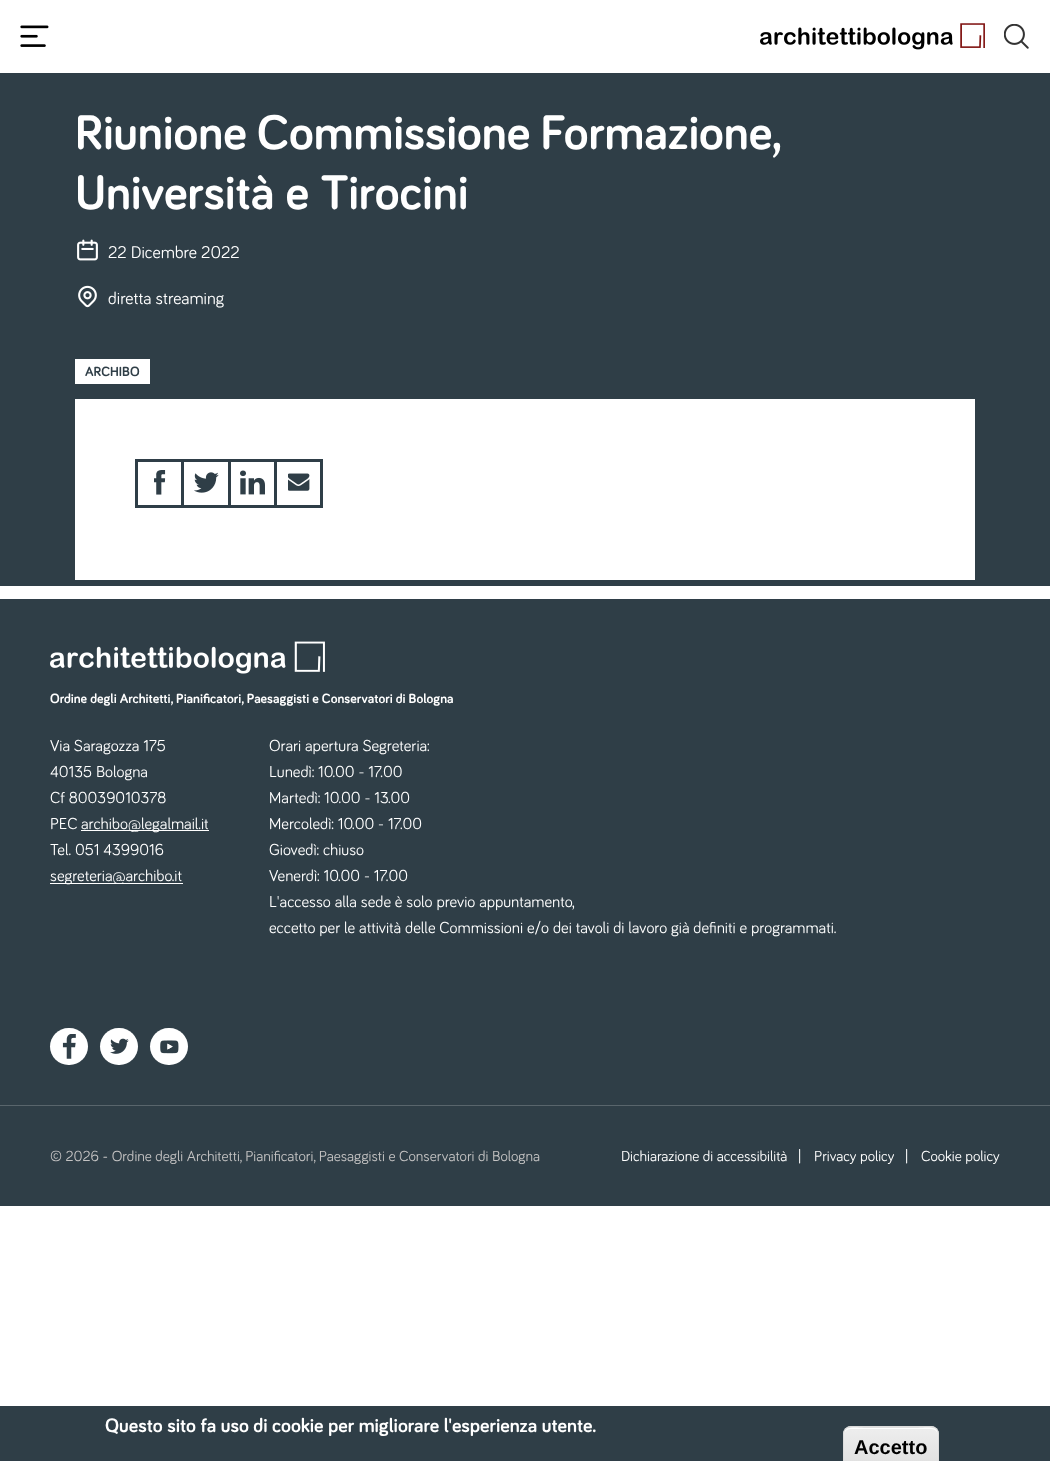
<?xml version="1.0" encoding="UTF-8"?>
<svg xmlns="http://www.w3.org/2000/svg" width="1050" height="1461">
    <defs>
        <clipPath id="clip1"><rect x="843" y="1426" width="96" height="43" rx="8"/></clipPath>
        <linearGradient id="g1" gradientUnits="userSpaceOnUse" x1="891" y1="1388" x2="891" y2="1428"><stop offset="0.05" stop-color="#EDEDED"/><stop offset="1" stop-color="#DFDFDF"/></linearGradient>
        <linearGradient id="g2" gradientUnits="userSpaceOnUse" x1="891" y1="1428" x2="891" y2="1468"><stop offset="0.05" stop-color="#EDEDED"/><stop offset="1" stop-color="#DFDFDF"/></linearGradient>
    </defs>
    <rect width="100%" height="100%" fill="#FFFFFF"/>
    <image x="20" y="25" width="29" height="22" href="img_01.png"/>
    <image x="760" y="23" width="225" height="27" href="img_02.png"/>
    <image x="1004" y="24" width="25" height="25" href="img_03.png"/>
    <rect x="0" y="73" width="1050" height="513" fill="#2F3E47"/>
    <text font-family="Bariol" font-size="50" font-weight="700" fill="#FFFFFF">
        <tspan x="75" y="149" word-spacing="-1">Riunione Commissione Formazione,</tspan>
        <tspan x="75" y="209">Università e Tirocini</tspan>
    </text>
    <image x="77" y="239" width="21" height="22" href="img_04.png"/>
    <text x="108" y="258" font-family="Bariol" font-size="17.5" fill="#FFFFFF">22 Dicembre 2022</text>
    <image x="78" y="285" width="19" height="23" href="img_05.png"/>
    <text x="108" y="304" font-family="Bariol" font-size="17.5" fill="#FFFFFF">diretta streaming</text>
    <rect x="75" y="359" width="75" height="25" fill="#FFFFFF"/>
    <text x="85" y="376" font-family="Bariol" font-size="13.75" font-weight="700" fill="#2F3E47">ARCHIBO</text>
    <rect x="75" y="399" width="900" height="181" fill="#FFFFFF"/>
    <rect x="136.5" y="460.5" width="46" height="46" fill="none" stroke="#2F3E47" stroke-width="3"/>
    <image x="154" y="470" width="12" height="25" href="img_06.png"/>
    <rect x="184" y="459" width="46" height="3" fill="#2F3E47"/>
    <rect x="228" y="459" width="3" height="49" fill="#2F3E47"/>
    <rect x="184" y="505" width="46" height="3" fill="#2F3E47"/>
    <image x="194" y="472" width="25" height="21" href="img_07.png"/>
    <rect x="230" y="459" width="46" height="3" fill="#2F3E47"/>
    <rect x="274" y="459" width="3" height="49" fill="#2F3E47"/>
    <rect x="230" y="505" width="46" height="3" fill="#2F3E47"/>
    <image x="240" y="470" width="25" height="25" href="img_08.png"/>
    <rect x="276" y="459" width="47" height="3" fill="#2F3E47"/>
    <rect x="320" y="459" width="3" height="49" fill="#2F3E47"/>
    <rect x="276" y="505" width="47" height="3" fill="#2F3E47"/>
    <image x="288" y="473" width="22" height="18" href="img_09.png"/>
    <rect x="0" y="599" width="1050" height="607" fill="#2F3E47"/>
    <image x="50" y="641" width="275" height="33" href="img_10.png"/>
    <text x="50" y="703" font-family="Bariol" font-size="13.75" font-weight="700" fill="#FFFFFF">Ordine degli Architetti, Pianificatori, Paesaggisti e Conservatori di Bologna</text>
    <text font-family="Bariol" font-size="16.25" fill="#FFFFFF">
        <tspan x="50" y="751">Via Saragozza 175</tspan>
        <tspan x="50" y="777">40135 Bologna</tspan>
        <tspan x="50" y="803">Cf 80039010378</tspan>
        <tspan x="50" y="829">PEC</tspan>
    </text>
    <rect x="81" y="830" width="128" height="1" fill="#FFFFFF"/>
    <text x="81" y="829" font-family="Bariol" font-size="16.25" fill="#FFFFFF">archibo@legalmail.it</text>
    <text x="50" y="855" font-family="Bariol" font-size="16.25" fill="#FFFFFF">Tel. 051 4399016</text>
    <rect x="50" y="883" width="133" height="1" fill="#FFFFFF"/>
    <text x="50" y="881" font-family="Bariol" font-size="16.25" fill="#FFFFFF">segreteria@archibo.it</text>
    <text font-family="Bariol" font-size="16.25" fill="#FFFFFF">
        <tspan x="269" y="751">Orari apertura Segreteria:</tspan>
        <tspan x="269" y="777">Lunedì: 10.00 - 17.00</tspan>
        <tspan x="269" y="803">Martedì: 10.00 - 13.00</tspan>
        <tspan x="269" y="829">Mercoledì: 10.00 - 17.00</tspan>
        <tspan x="269" y="855">Giovedì: chiuso</tspan>
        <tspan x="269" y="881">Venerdì: 10.00 - 17.00</tspan>
        <tspan x="269" y="907">L'accesso alla sede è solo previo appuntamento,</tspan>
        <tspan x="269" y="933">eccetto per le attività delle Commissioni e/o dei tavoli di lavoro già definiti e programmati.</tspan>
    </text>
    <rect x="50" y="1028" width="38" height="37" rx="18.5" fill="#FFFFFF"/>
    <image x="62" y="1034" width="14" height="25" href="img_11.png"/>
    <rect x="100" y="1028" width="38" height="37" rx="18.5" fill="#FFFFFF"/>
    <image x="110" y="1038" width="19" height="16" href="img_12.png"/>
    <rect x="150" y="1028" width="38" height="37" rx="18.5" fill="#FFFFFF"/>
    <image x="160" y="1040" width="19" height="14" href="img_13.png"/>
    <rect x="0" y="1105" width="1050" height="1" fill="#59656C"/>
    <text x="50" y="1161" font-family="Bariol" font-size="15" fill="#C4C3C3">© 2026 - Ordine degli Architetti, Pianificatori, Paesaggisti e Conservatori di Bologna</text>
    <text x="621" y="1161" font-family="Bariol" font-size="15" fill="#FFFFFF">Dichiarazione di accessibilità</text>
    <text x="798" y="1161" font-family="Bariol" font-size="15" fill="#FFFFFF">|</text>
    <text x="814" y="1161" font-family="Bariol" font-size="15" fill="#FFFFFF">Privacy policy</text>
    <text x="905" y="1161" font-family="Bariol" font-size="15" fill="#FFFFFF">|</text>
    <text x="921" y="1161" font-family="Bariol" font-size="15" fill="#FFFFFF">Cookie policy</text>
    <rect x="0" y="1406" width="1050" height="55" fill="#2F3E47"/>
    <text x="105" y="1432" font-family="Bariol" font-size="20" font-weight="700" fill="#FFFFFF">Questo sito fa uso di cookie per migliorare l'esperienza utente.</text>
    <g clip-path="url(#clip1)">
        <rect x="843" y="1426" width="96" height="2" fill="url(#g1)"/>
        <rect x="843" y="1428" width="96" height="33" fill="url(#g2)"/>
    </g>
    <path d="M 850 1429 H 931 C 935 1429 938 1432 938 1435 C 938 1425 925 1428 918 1428 H 864 C 857 1428 844 1425 844 1435 C 844 1432 847 1429 850 1429 Z" fill="#FFFFFF"/>
    <rect x="843.5" y="1426.5" width="95" height="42" rx="7.5" fill="none" stroke="#DCDCDC"/>
    <text x="854" y="1454" font-family="Liberation Sans" font-size="20" font-weight="700" fill="#000000">Accetto</text>
</svg>
